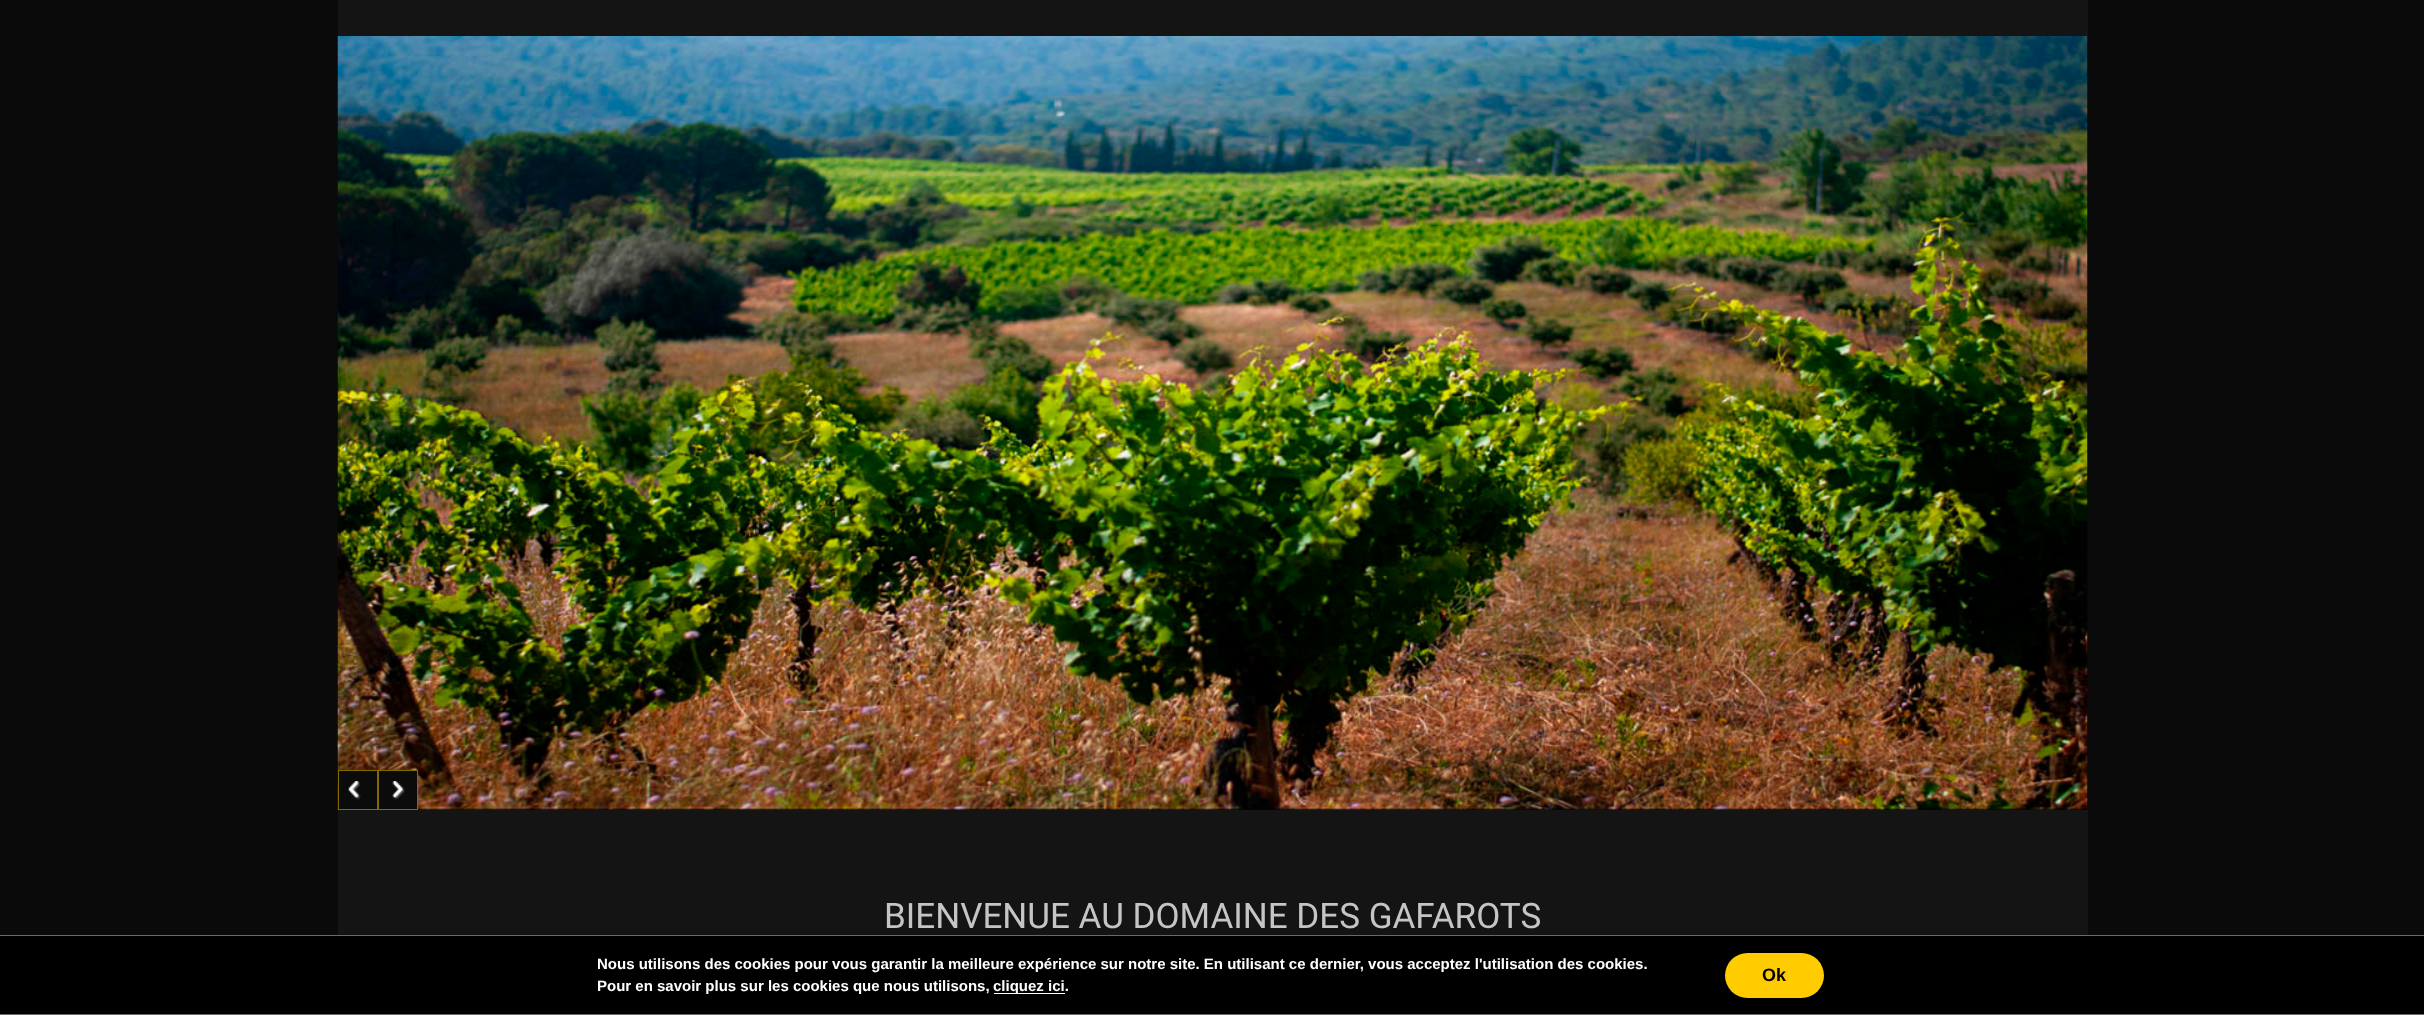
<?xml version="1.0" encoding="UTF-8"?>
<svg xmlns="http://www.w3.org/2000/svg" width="2424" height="1015">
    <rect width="100%" height="100%" fill="#0A0A0A"/>
    <rect x="338" y="0" width="1750" height="36" fill="#141414"/>
    <image x="337" y="36" width="1751" height="774" href="img_01.png"/>
    <rect x="339" y="771" width="38" height="38" fill="#0B0B0B"/>
    <image x="348" y="781" width="13" height="19" href="img_02.png"/>
    <rect x="338.5" y="770.5" width="39" height="39" fill="none" stroke="#846900"/>
    <rect x="379" y="771" width="38" height="38" fill="#0B0B0B"/>
    <image x="392" y="781" width="13" height="19" href="img_03.png"/>
    <rect x="378.5" y="770.5" width="39" height="39" fill="none" stroke="#846900"/>
    <rect x="338" y="810" width="1750" height="125" fill="#141414"/>
    <text x="884" y="928" font-family="Roboto" font-size="35" fill="#C5C5C5">BIENVENUE AU DOMAINE DES GAFAROTS</text>
    <rect x="0" y="936" width="2424" height="78" fill="#000000"/>
    <rect x="0" y="935" width="2424" height="1" fill="#696969"/>
    <rect x="0" y="1014" width="2424" height="1" fill="#696969"/>
    <text font-family="Liberation Sans" font-size="15" font-weight="700" fill="#FFFFFF">
        <tspan x="597" y="969">Nous utilisons des cookies pour vous garantir la meilleure expérience sur notre site. En utilisant ce dernier, vous acceptez l'utilisation des cookies.</tspan>
        <tspan x="597" y="991">Pour en savoir plus sur les cookies que nous utilisons,</tspan>
    </text>
    <rect x="994" y="993" width="71" height="1" fill="#FFFFFF"/>
    <text x="993" y="991" font-family="Liberation Sans" font-size="15" font-weight="700" fill="#FFFFFF">cliquez ici.</text>
    <rect x="1725" y="953" width="99" height="45" rx="22.5" fill="#FFCC00"/>
    <text x="1762" y="981" font-family="Liberation Sans" font-size="18" font-weight="700" fill="#000000">Ok</text>
</svg>
